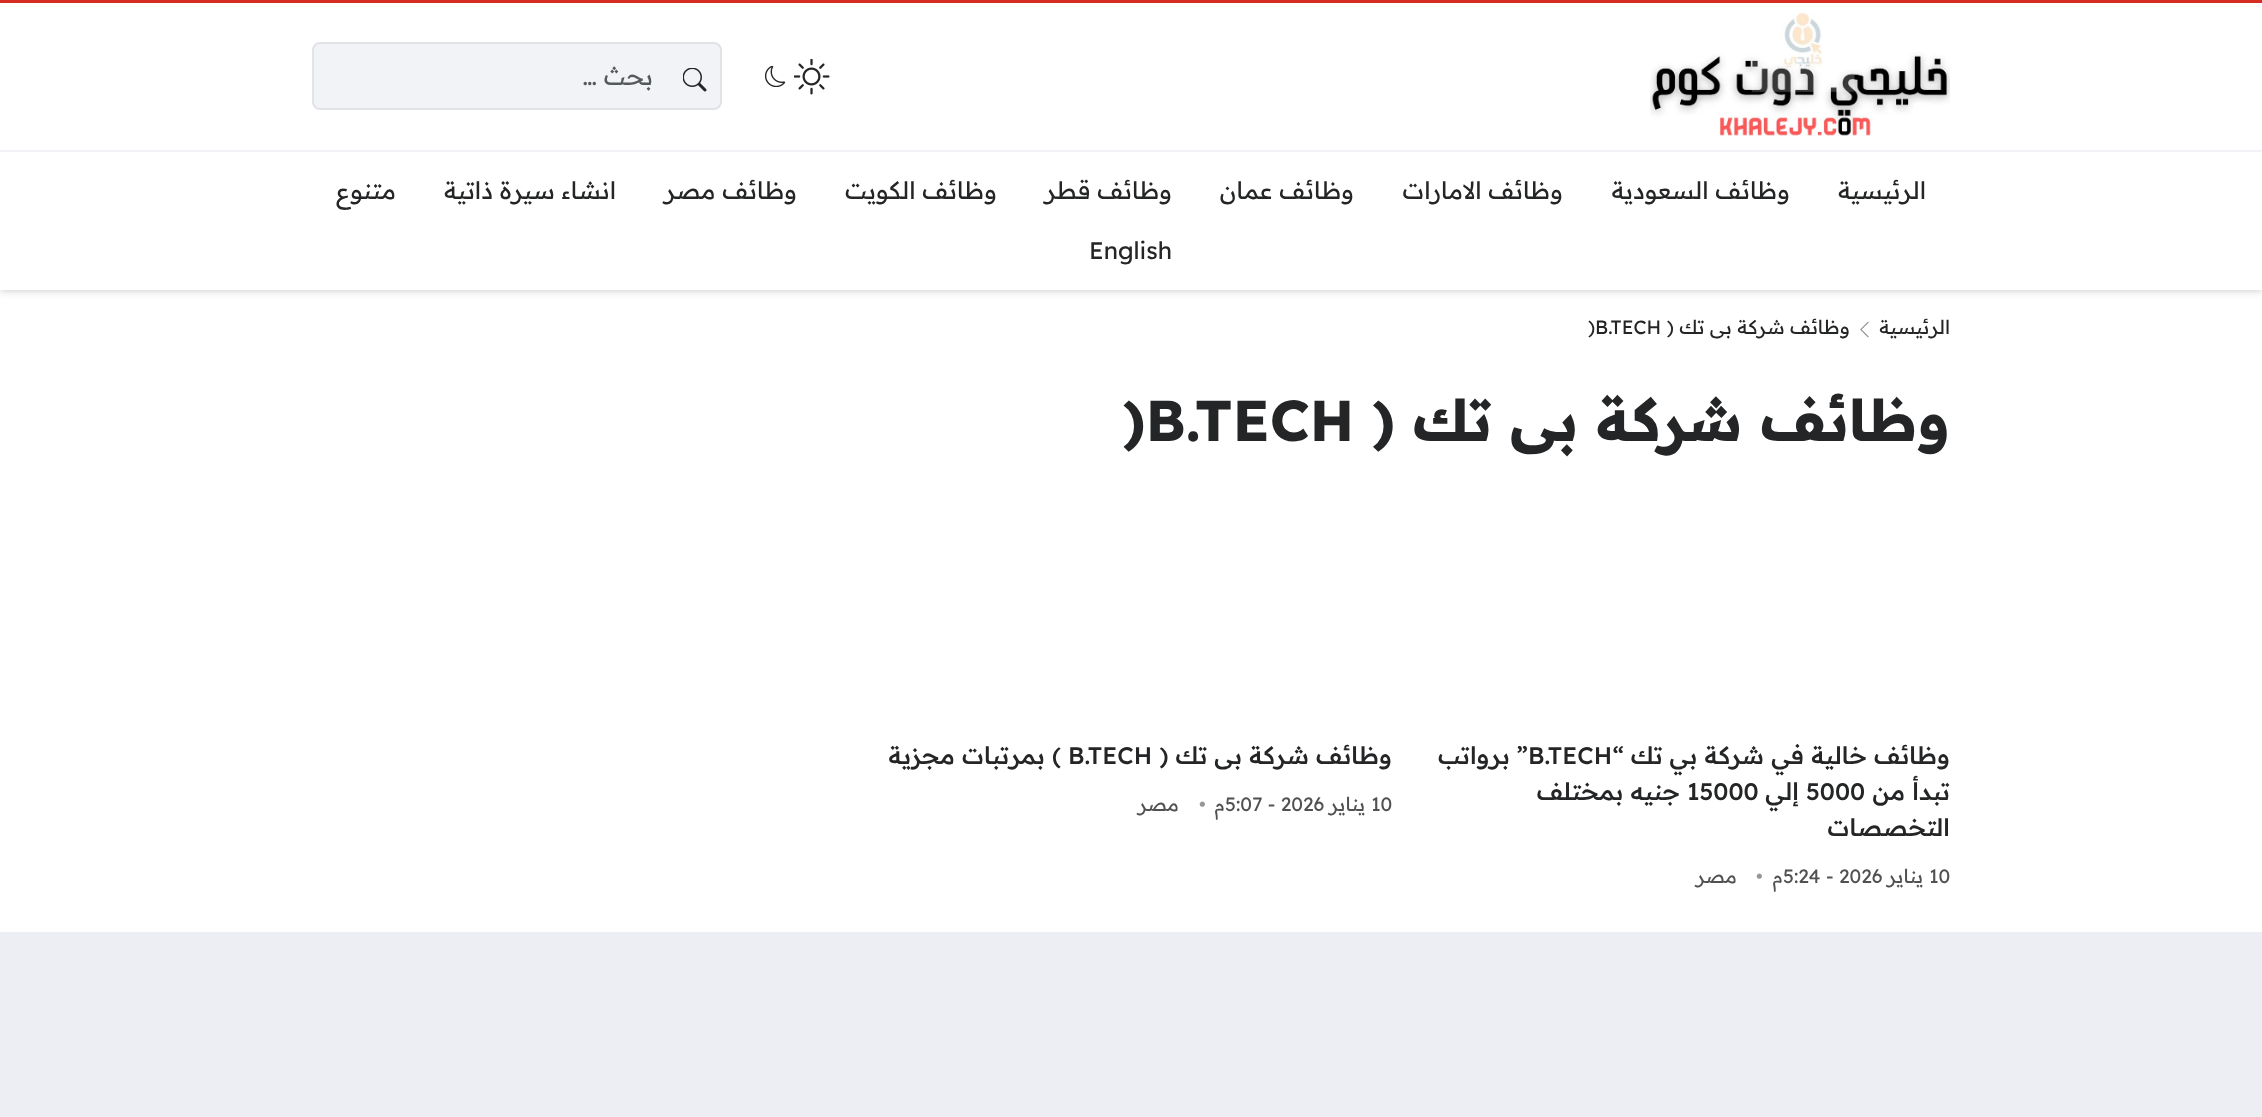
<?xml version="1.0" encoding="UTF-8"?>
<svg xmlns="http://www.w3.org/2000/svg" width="2262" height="1117">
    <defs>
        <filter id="blur1" x="-50%" y="-200%" width="200%" height="500%"><feGaussianBlur stdDeviation="4"/></filter>
    </defs>
    <rect width="100%" height="100%" fill="#EDEEF3"/>
    <rect x="0" y="290" width="2262" height="642" fill="#FFFFFF"/>
    <rect x="0" y="0" width="2262" height="290" fill="#C3C3C3" filter="url(#blur1)"/>
    <rect x="0" y="0" width="2262" height="3" fill="#D52D21"/>
    <rect x="0" y="3" width="2262" height="147" fill="#FFFFFF"/>
    <image x="1650" y="12" width="300" height="124" href="img_01.png"/>
    <image x="794" y="59" width="36" height="36" href="img_02.png"/>
    <image x="765" y="66" width="21" height="21" href="img_03.png"/>
    <rect x="313" y="43" width="408" height="66" rx="7" fill="#F2F3F6" stroke="#E2E3E7" stroke-width="2"/>
    <image x="683" y="68" width="24" height="24" href="img_04.png"/>
    <text x="653" y="85" font-family="Readex Pro" font-size="24" direction="rtl" fill="#55595C">بحث …</text>
    <rect x="0" y="152" width="2262" height="138" fill="#FFFFFF"/>
    <rect x="0" y="150" width="2262" height="2" fill="#F2F3F6"/>
    <text x="1926" y="199" font-family="Readex Pro" font-size="24" direction="rtl" fill="#242526">الرئيسية</text>
    <text x="1790" y="199" font-family="Readex Pro" font-size="24" direction="rtl" fill="#242526">وظائف السعودية</text>
    <text x="1563" y="199" font-family="Readex Pro" font-size="24" direction="rtl" fill="#242526">وظائف الامارات</text>
    <text x="1354" y="199" font-family="Readex Pro" font-size="24" direction="rtl" fill="#242526">وظائف عمان</text>
    <text x="1172" y="199" font-family="Readex Pro" font-size="24" direction="rtl" fill="#242526">وظائف قطر</text>
    <text x="997" y="199" font-family="Readex Pro" font-size="24" direction="rtl" fill="#242526">وظائف الكويت</text>
    <text x="797" y="199" font-family="Readex Pro" font-size="24" direction="rtl" fill="#242526">وظائف مصر</text>
    <text x="616" y="199" font-family="Readex Pro" font-size="24" direction="rtl" fill="#242526">انشاء سيرة ذاتية</text>
    <text x="396" y="199" font-family="Readex Pro" font-size="24" direction="rtl" fill="#242526">متنوع</text>
    <text x="1089" y="259" font-family="Readex Pro" font-size="24" fill="#242526">English</text>
    <text x="1950" y="334" font-family="Readex Pro" font-size="19.25" direction="rtl" fill="#242526">الرئيسية</text>
    <image x="1860" y="321" width="9" height="17" href="img_05.png"/>
    <text x="1850" y="334" font-family="Readex Pro" font-size="19.25" direction="rtl" fill="#242526">وظائف شركة بى تك (</text>
    <text x="1588" y="334" font-family="Readex Pro" font-size="19.25" fill="#242526">)B.TECH</text>
    <text x="1950" y="441" font-family="Readex Pro" font-size="57.6" font-weight="700" direction="rtl" fill="#242526">وظائف شركة بى تك (</text>
    <text x="1123" y="441" font-family="Readex Pro" font-size="57.6" font-weight="700" fill="#242526">)B.TECH</text>
    <text x="1950" y="764" font-family="Readex Pro" font-size="24" font-weight="500" direction="rtl" fill="#242526">وظائف خالية في شركة بي تك “</text>
    <text x="1528" y="764" font-family="Readex Pro" font-size="24" font-weight="500" fill="#242526">B.TECH</text>
    <text x="1528" y="764" font-family="Readex Pro" font-size="24" font-weight="500" direction="rtl" fill="#242526">” برواتب</text>
    <text x="1950" y="800" font-family="Readex Pro" font-size="24" font-weight="500" direction="rtl" fill="#242526">تبدأ من</text>
    <text x="1806" y="800" font-family="Readex Pro" font-size="24" font-weight="500" fill="#242526">5000</text>
    <text x="1799" y="800" font-family="Readex Pro" font-size="24" font-weight="500" direction="rtl" fill="#242526">إلي</text>
    <text x="1687" y="800" font-family="Readex Pro" font-size="24" font-weight="500" fill="#242526">15000</text>
    <text x="1680" y="800" font-family="Readex Pro" font-size="24" font-weight="500" direction="rtl" fill="#242526">جنيه بمختلف</text>
    <text x="1950" y="836" font-family="Readex Pro" font-size="24" font-weight="500" direction="rtl" fill="#242526">التخصصات</text>
    <text x="1929" y="883" font-family="Readex Pro" font-size="19.25" fill="#505151">10</text>
    <text x="1923" y="883" font-family="Readex Pro" font-size="19.25" direction="rtl" fill="#505151">يناير</text>
    <text x="1826" y="883" font-family="Readex Pro" font-size="19.25" fill="#505151">- 2026</text>
    <text x="1783" y="883" font-family="Readex Pro" font-size="19.25" fill="#505151">5:24</text>
    <text x="1783" y="883" font-family="Readex Pro" font-size="19.25" direction="rtl" fill="#505151">م</text>
    <text x="1756" y="883" font-family="Readex Pro" font-size="19.25" fill="#969697">•</text>
    <text x="1737" y="883" font-family="Readex Pro" font-size="19.25" direction="rtl" fill="#505151">مصر</text>
    <text x="1392" y="764" font-family="Readex Pro" font-size="24" font-weight="500" direction="rtl" fill="#242526">وظائف شركة بى تك (</text>
    <text x="1068" y="764" font-family="Readex Pro" font-size="24" font-weight="500" fill="#242526">B.TECH</text>
    <text x="1061" y="764" font-family="Readex Pro" font-size="24" font-weight="500" direction="rtl" fill="#242526">) بمرتبات مجزية</text>
    <text x="1371" y="811" font-family="Readex Pro" font-size="19.25" fill="#505151">10</text>
    <text x="1365" y="811" font-family="Readex Pro" font-size="19.25" direction="rtl" fill="#505151">يناير</text>
    <text x="1225" y="811" font-family="Readex Pro" font-size="19.25" fill="#505151">5:07 - 2026</text>
    <text x="1225" y="811" font-family="Readex Pro" font-size="19.25" direction="rtl" fill="#505151">م</text>
    <text x="1199" y="811" font-family="Readex Pro" font-size="19.25" fill="#969697">•</text>
    <text x="1179" y="811" font-family="Readex Pro" font-size="19.25" direction="rtl" fill="#505151">مصر</text>
</svg>
